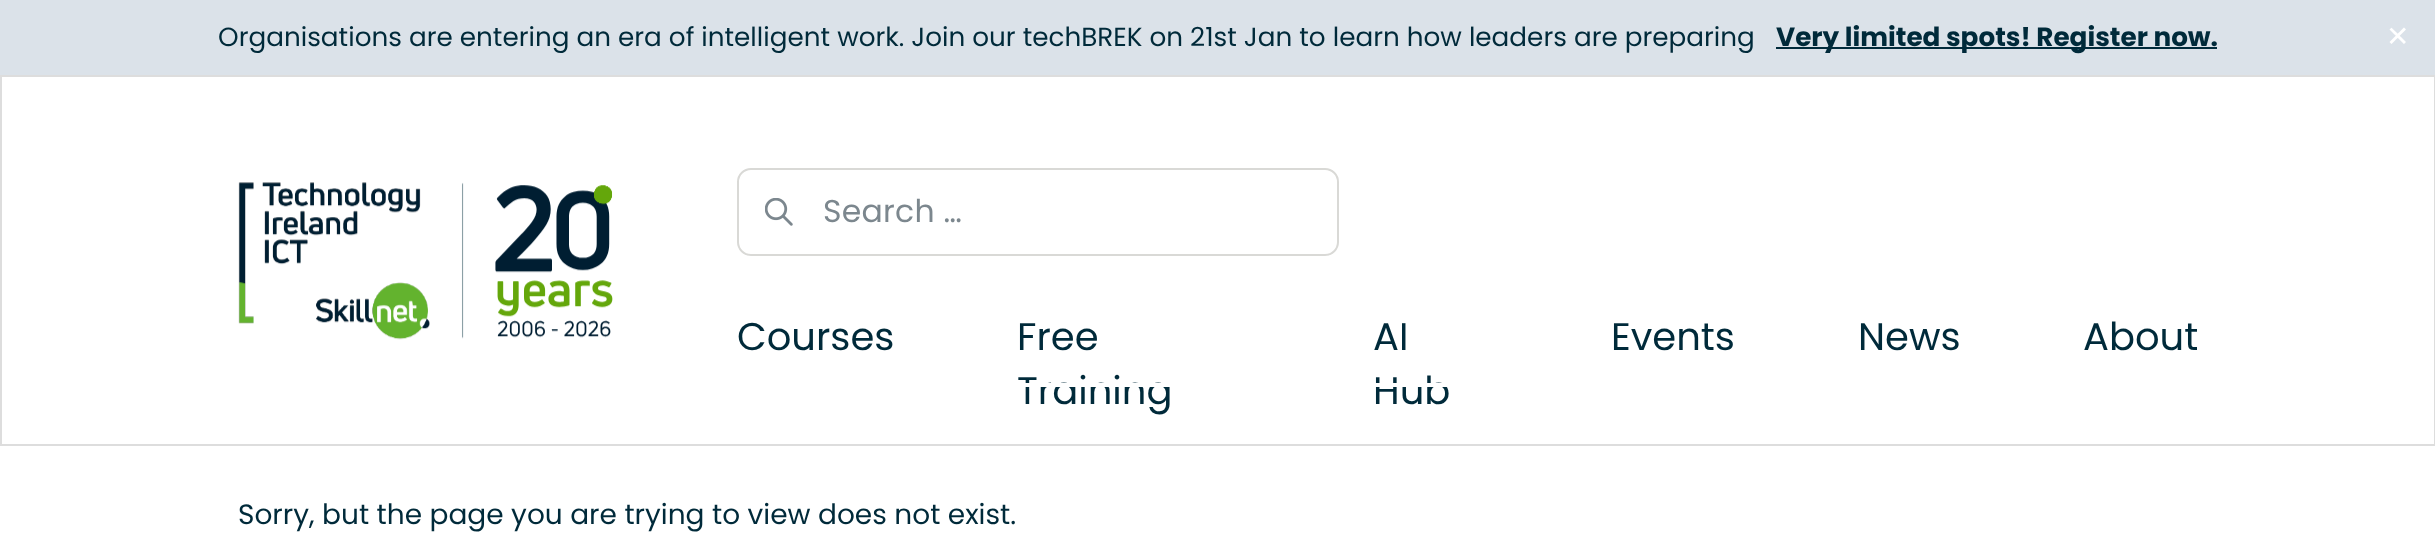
<?xml version="1.0" encoding="UTF-8"?>
<svg xmlns="http://www.w3.org/2000/svg" width="2435" height="550">
    <rect width="100%" height="100%" fill="#FFFFFF"/>
    <rect x="0" y="0" width="2435" height="75" fill="#DBE2E9"/>
    <text x="218" y="46" font-family="Poppins" font-size="26.25" fill="#002A3A">Organisations are entering an era of intelligent work. Join our techBREK on 21st Jan to learn how leaders are preparing</text>
    <rect x="1776" y="47" width="441" height="2" fill="#002A3A"/>
    <text x="1776" y="46" font-family="Poppins" font-size="26.25" font-weight="700" fill="#002A3A">Very limited spots! Register now.</text>
    <text x="2386" y="46" font-family="DejaVu Sans" font-size="28" fill="#FFFFFF">✕</text>
    <rect x="1" y="76" width="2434" height="369" fill="none" stroke="#DDDDDD" stroke-width="2"/>
    <image x="238" y="182" width="375" height="158" href="img_01.png"/>
    <rect x="738" y="169" width="600" height="86" rx="13" fill="none" stroke="#D9D9D6" stroke-width="2"/>
    <image x="765" y="198" width="28" height="28" href="img_02.png"/>
    <text x="823" y="222" font-family="Poppins" font-size="31.5" letter-spacing="0.25" fill="#7C878E">Search …</text>
    <text x="737" y="350" font-family="Poppins" font-size="38.5" fill="#002A3A">Courses</text>
    <text x="1017" y="404" font-family="Poppins" font-size="38.5" fill="#002A3A">Training</text>
    <text x="1373" y="404" font-family="Poppins" font-size="38.5" fill="#002A3A">Hub</text>
    <rect x="387" y="383" width="1295" height="4" rx="2" fill="#FFFFFF"/>
    <text x="1017" y="350" font-family="Poppins" font-size="38.5" fill="#002A3A">Free</text>
    <text x="1373" y="350" font-family="Poppins" font-size="38.5" fill="#002A3A">AI</text>
    <text x="1611" y="350" font-family="Poppins" font-size="38.5" fill="#002A3A">Events</text>
    <text x="1858" y="350" font-family="Poppins" font-size="38.5" fill="#002A3A">News</text>
    <text x="2083" y="350" font-family="Poppins" font-size="38.5" fill="#002A3A">About</text>
    <text x="238" y="524" font-family="Poppins" font-size="28" fill="#002A3A">Sorry, but the page you are trying to view does not exist.</text>
</svg>
